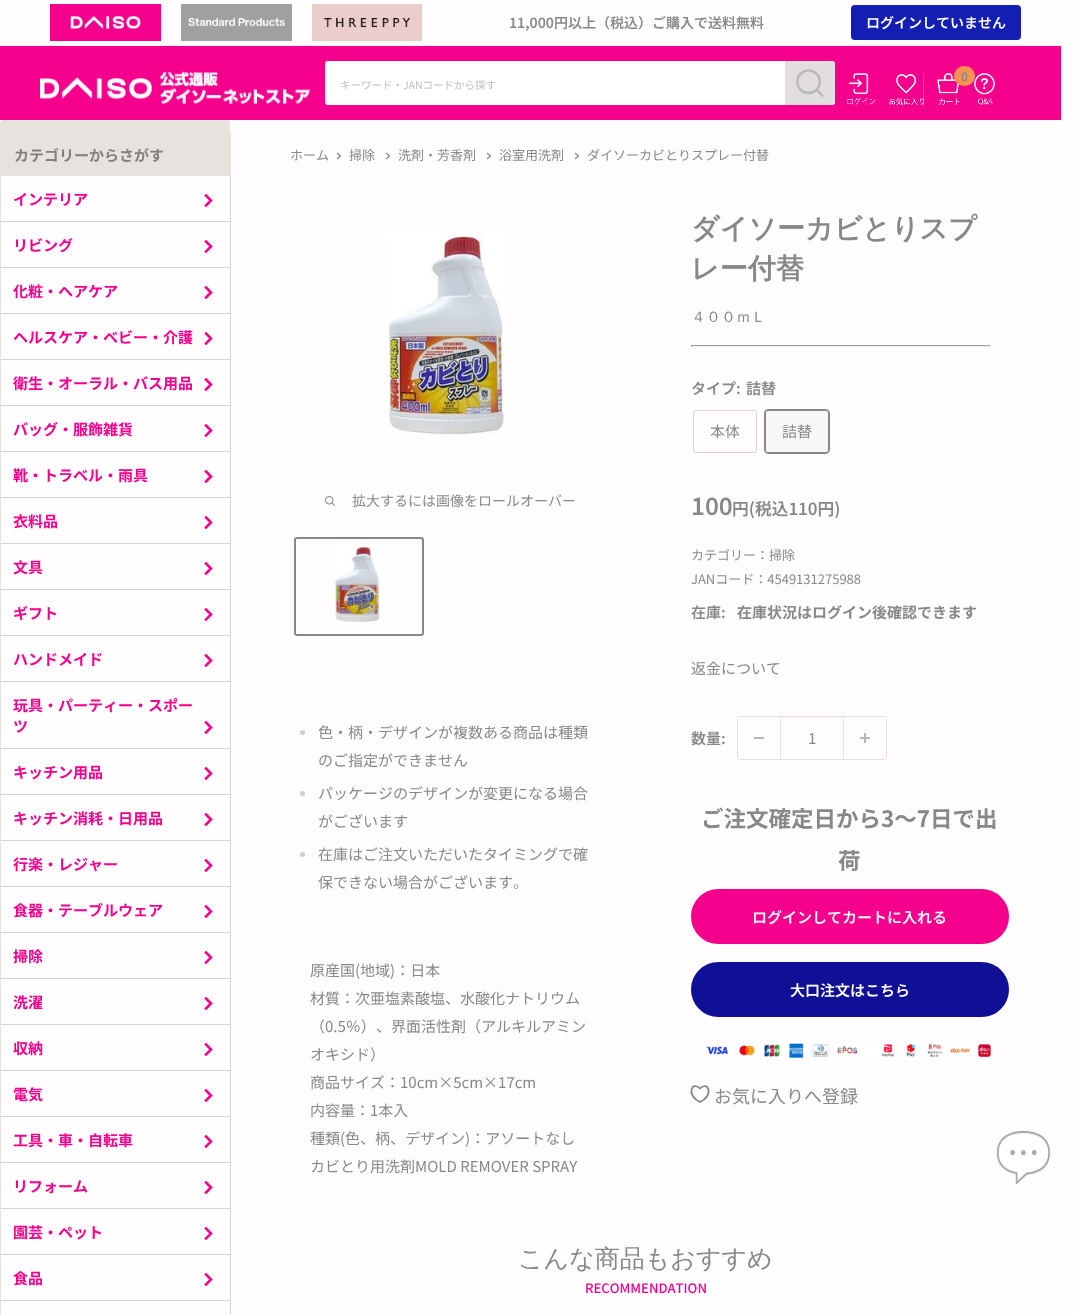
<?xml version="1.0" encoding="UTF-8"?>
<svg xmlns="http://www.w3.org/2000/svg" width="1076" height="1315">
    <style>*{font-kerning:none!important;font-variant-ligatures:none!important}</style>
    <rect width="100%" height="100%" fill="#FFFDFD"/>
    <rect x="0" y="45" width="1061" height="1" fill="#F8F6F5"/>
    <image x="50" y="4" width="111" height="37" href="img_01.png"/>
    <image x="181" y="4" width="111" height="37" href="img_02.png"/>
    <image x="312" y="4" width="110" height="37" href="img_03.png"/>
    <text x="509" y="28" font-family="Noto Sans JP" font-size="14" font-weight="600" fill="#888888">11,000円以上（税込）ご購入で送料無料</text>
    <rect x="851" y="5" width="170" height="35" rx="4" fill="#131EB2"/>
    <text x="866" y="28" font-family="Noto Sans JP" font-size="14" font-weight="600" fill="#FFFFFF">ログインしていません</text>
    <rect x="0" y="46" width="1061" height="74" fill="#F5008C"/>
    <image x="40" y="71" width="270" height="34" href="img_04.png"/>
    <image x="847" y="73" width="29" height="32" href="img_05.png"/>
    <image x="889" y="74" width="35" height="31" href="img_06.png"/>
    <rect x="923" y="73" width="1" height="34" fill="#E9E2DD" fill-opacity="0.3"/>
    <image x="937" y="73" width="23" height="32" href="img_07.png"/>
    <image x="974" y="73" width="21" height="32" href="img_08.png"/>
    <rect x="954" y="66" width="21" height="20" rx="10" fill="#F5944F"/>
    <text x="961" y="81" font-family="Noto Sans JP" font-size="12" font-weight="600" fill="#888888">0</text>
    <rect x="325" y="61" width="510" height="44" rx="3" fill="#FFFFFF"/>
    <text x="340" y="89" font-family="Noto Sans JP" font-size="10.5" fill="#BEBEBE">キーワード・JANコードから探す</text>
    <path d="M 785 61 H 832 C 833.5 61 835 62.5 835 64 V 102 C 835 103.5 833.5 105 832 105 H 785 Z" fill="#E1DEDD"/>
    <image x="796" y="69" width="28" height="28" href="img_09.png"/>
    <rect x="0.5" y="120.5" width="229" height="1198" rx="2.5" fill="none" stroke="#E7E2DE"/>
    <rect x="1" y="121" width="228" height="12" fill="#E7E2DE"/>
    <rect x="1" y="133" width="230" height="43" fill="#E7E2DE"/>
    <text x="14" y="161" font-family="Noto Sans JP" font-size="15" font-weight="700" fill="#808080">カテゴリーからさがす</text>
    <rect x="230" y="176" width="1" height="1139" fill="#D3D3D3"/>
    <rect x="1" y="221" width="230" height="1" fill="#D3D3D3"/>
    <rect x="229" y="176" width="1" height="45" fill="#FFFFFF"/>
    <text x="13" y="205" font-family="Noto Sans JP" font-size="15" font-weight="700" fill="#F5008C">インテリア</text>
    <path d="M 206 195.5 L 211 200.5 L 206 205.5 M 206 241.5 L 211 246.5 L 206 251.5" fill="none" stroke="#F5008C" stroke-width="2.5" stroke-linecap="square"/>
    <rect x="1" y="267" width="230" height="1" fill="#D3D3D3"/>
    <rect x="229" y="222" width="1" height="45" fill="#FFFFFF"/>
    <text x="13" y="251" font-family="Noto Sans JP" font-size="15" font-weight="700" fill="#F5008C">リビング</text>
    <rect x="1" y="313" width="230" height="1" fill="#D3D3D3"/>
    <rect x="229" y="268" width="1" height="45" fill="#FFFFFF"/>
    <text x="13" y="297" font-family="Noto Sans JP" font-size="15" font-weight="700" fill="#F5008C">化粧・ヘアケア</text>
    <path d="M 206 287.5 L 211 292.5 L 206 297.5 M 206 333.5 L 211 338.5 L 206 343.5" fill="none" stroke="#F5008C" stroke-width="2.5" stroke-linecap="square"/>
    <rect x="1" y="359" width="230" height="1" fill="#D3D3D3"/>
    <rect x="229" y="314" width="1" height="45" fill="#FFFFFF"/>
    <text x="13" y="343" font-family="Noto Sans JP" font-size="15" font-weight="700" fill="#F5008C">ヘルスケア・ベビー・介護</text>
    <rect x="1" y="405" width="230" height="1" fill="#D3D3D3"/>
    <rect x="229" y="360" width="1" height="45" fill="#FFFFFF"/>
    <text x="13" y="389" font-family="Noto Sans JP" font-size="15" font-weight="700" fill="#F5008C">衛生・オーラル・バス用品</text>
    <path d="M 206 379.5 L 211 384.5 L 206 389.5 M 206 425.5 L 211 430.5 L 206 435.5" fill="none" stroke="#F5008C" stroke-width="2.5" stroke-linecap="square"/>
    <rect x="1" y="451" width="230" height="1" fill="#D3D3D3"/>
    <rect x="229" y="406" width="1" height="45" fill="#FFFFFF"/>
    <text x="13" y="435" font-family="Noto Sans JP" font-size="15" font-weight="700" fill="#F5008C">バッグ・服飾雑貨</text>
    <rect x="1" y="497" width="230" height="1" fill="#D3D3D3"/>
    <rect x="229" y="452" width="1" height="45" fill="#FFFFFF"/>
    <text x="13" y="481" font-family="Noto Sans JP" font-size="15" font-weight="700" fill="#F5008C">靴・トラベル・雨具</text>
    <path d="M 206 471.5 L 211 476.5 L 206 481.5 M 206 517.5 L 211 522.5 L 206 527.5" fill="none" stroke="#F5008C" stroke-width="2.5" stroke-linecap="square"/>
    <rect x="1" y="543" width="230" height="1" fill="#D3D3D3"/>
    <rect x="229" y="498" width="1" height="45" fill="#FFFFFF"/>
    <text x="13" y="527" font-family="Noto Sans JP" font-size="15" font-weight="700" fill="#F5008C">衣料品</text>
    <rect x="1" y="589" width="230" height="1" fill="#D3D3D3"/>
    <rect x="229" y="544" width="1" height="45" fill="#FFFFFF"/>
    <text x="13" y="573" font-family="Noto Sans JP" font-size="15" font-weight="700" fill="#F5008C">文具</text>
    <path d="M 206 563.5 L 211 568.5 L 206 573.5 M 206 609.5 L 211 614.5 L 206 619.5" fill="none" stroke="#F5008C" stroke-width="2.5" stroke-linecap="square"/>
    <rect x="1" y="635" width="230" height="1" fill="#D3D3D3"/>
    <rect x="229" y="590" width="1" height="45" fill="#FFFFFF"/>
    <text x="13" y="619" font-family="Noto Sans JP" font-size="15" font-weight="700" fill="#F5008C">ギフト</text>
    <rect x="1" y="681" width="230" height="1" fill="#D3D3D3"/>
    <rect x="229" y="636" width="1" height="45" fill="#FFFFFF"/>
    <text x="13" y="665" font-family="Noto Sans JP" font-size="15" font-weight="700" fill="#F5008C">ハンドメイド</text>
    <path d="M 206 655.5 L 211 660.5 L 206 665.5" fill="none" stroke="#F5008C" stroke-width="2.5" stroke-linecap="square"/>
    <rect x="1" y="748" width="230" height="1" fill="#D3D3D3"/>
    <rect x="229" y="682" width="1" height="66" fill="#FFFFFF"/>
    <text font-family="Noto Sans JP" font-size="15" font-weight="700" fill="#F5008C">
        <tspan x="13" y="711">玩具・パーティー・スポー</tspan>
        <tspan x="13" y="732">ツ</tspan>
    </text>
    <path d="M 206 722.5 L 211 727.5 L 206 732.5 M 206 768.5 L 211 773.5 L 206 778.5" fill="none" stroke="#F5008C" stroke-width="2.5" stroke-linecap="square"/>
    <rect x="1" y="794" width="230" height="1" fill="#D3D3D3"/>
    <rect x="229" y="749" width="1" height="45" fill="#FFFFFF"/>
    <text x="13" y="778" font-family="Noto Sans JP" font-size="15" font-weight="700" fill="#F5008C">キッチン用品</text>
    <rect x="1" y="840" width="230" height="1" fill="#D3D3D3"/>
    <rect x="229" y="795" width="1" height="45" fill="#FFFFFF"/>
    <text x="13" y="824" font-family="Noto Sans JP" font-size="15" font-weight="700" fill="#F5008C">キッチン消耗・日用品</text>
    <path d="M 206 814.5 L 211 819.5 L 206 824.5 M 206 860.5 L 211 865.5 L 206 870.5" fill="none" stroke="#F5008C" stroke-width="2.5" stroke-linecap="square"/>
    <rect x="1" y="886" width="230" height="1" fill="#D3D3D3"/>
    <rect x="229" y="841" width="1" height="45" fill="#FFFFFF"/>
    <text x="13" y="870" font-family="Noto Sans JP" font-size="15" font-weight="700" fill="#F5008C">行楽・レジャー</text>
    <rect x="1" y="932" width="230" height="1" fill="#D3D3D3"/>
    <rect x="229" y="887" width="1" height="45" fill="#FFFFFF"/>
    <text x="13" y="916" font-family="Noto Sans JP" font-size="15" font-weight="700" fill="#F5008C">食器・テーブルウェア</text>
    <path d="M 206 906.5 L 211 911.5 L 206 916.5 M 206 952.5 L 211 957.5 L 206 962.5" fill="none" stroke="#F5008C" stroke-width="2.5" stroke-linecap="square"/>
    <rect x="1" y="978" width="230" height="1" fill="#D3D3D3"/>
    <rect x="229" y="933" width="1" height="45" fill="#FFFFFF"/>
    <text x="13" y="962" font-family="Noto Sans JP" font-size="15" font-weight="700" fill="#F5008C">掃除</text>
    <rect x="1" y="1024" width="230" height="1" fill="#D3D3D3"/>
    <rect x="229" y="979" width="1" height="45" fill="#FFFFFF"/>
    <text x="13" y="1008" font-family="Noto Sans JP" font-size="15" font-weight="700" fill="#F5008C">洗濯</text>
    <path d="M 206 998.5 L 211 1003.5 L 206 1008.5 M 206 1044.5 L 211 1049.5 L 206 1054.5" fill="none" stroke="#F5008C" stroke-width="2.5" stroke-linecap="square"/>
    <rect x="1" y="1070" width="230" height="1" fill="#D3D3D3"/>
    <rect x="229" y="1025" width="1" height="45" fill="#FFFFFF"/>
    <text x="13" y="1054" font-family="Noto Sans JP" font-size="15" font-weight="700" fill="#F5008C">収納</text>
    <rect x="1" y="1116" width="230" height="1" fill="#D3D3D3"/>
    <rect x="229" y="1071" width="1" height="45" fill="#FFFFFF"/>
    <text x="13" y="1100" font-family="Noto Sans JP" font-size="15" font-weight="700" fill="#F5008C">電気</text>
    <path d="M 206 1090.5 L 211 1095.5 L 206 1100.5 M 206 1136.5 L 211 1141.5 L 206 1146.5" fill="none" stroke="#F5008C" stroke-width="2.5" stroke-linecap="square"/>
    <rect x="1" y="1162" width="230" height="1" fill="#D3D3D3"/>
    <rect x="229" y="1117" width="1" height="45" fill="#FFFFFF"/>
    <text x="13" y="1146" font-family="Noto Sans JP" font-size="15" font-weight="700" fill="#F5008C">工具・車・自転車</text>
    <rect x="1" y="1208" width="230" height="1" fill="#D3D3D3"/>
    <rect x="229" y="1163" width="1" height="45" fill="#FFFFFF"/>
    <text x="13" y="1192" font-family="Noto Sans JP" font-size="15" font-weight="700" fill="#F5008C">リフォーム</text>
    <path d="M 206 1182.5 L 211 1187.5 L 206 1192.5 M 206 1228.5 L 211 1233.5 L 206 1238.5" fill="none" stroke="#F5008C" stroke-width="2.5" stroke-linecap="square"/>
    <rect x="1" y="1254" width="230" height="1" fill="#D3D3D3"/>
    <rect x="229" y="1209" width="1" height="45" fill="#FFFFFF"/>
    <text x="13" y="1238" font-family="Noto Sans JP" font-size="15" font-weight="700" fill="#F5008C">園芸・ペット</text>
    <rect x="1" y="1300" width="230" height="1" fill="#D3D3D3"/>
    <rect x="229" y="1255" width="1" height="45" fill="#FFFFFF"/>
    <text x="13" y="1284" font-family="Noto Sans JP" font-size="15" font-weight="700" fill="#F5008C">食品</text>
    <path d="M 206 1274.5 L 211 1279.5 L 206 1284.5" fill="none" stroke="#F5008C" stroke-width="2.5" stroke-linecap="square"/>
    <rect x="229" y="1301" width="1" height="14" fill="#FFFFFF"/>
    <text x="290" y="160" font-family="Noto Sans JP" font-size="13" fill="#888888">ホーム</text>
    <path d="M 337.5 153.5 L 340.5 156 L 337.5 158.5 M 386.5 153.5 L 389.5 156 L 386.5 158.5" fill="none" stroke="#888888" stroke-width="1.3" stroke-linecap="square"/>
    <text x="349" y="160" font-family="Noto Sans JP" font-size="13" fill="#888888">掃除</text>
    <text x="398" y="160" font-family="Noto Sans JP" font-size="13" fill="#888888">洗剤・芳香剤</text>
    <path d="M 487.5 153.5 L 490.5 156 L 487.5 158.5" fill="none" stroke="#888888" stroke-width="1.3" stroke-linecap="square"/>
    <text x="499" y="160" font-family="Noto Sans JP" font-size="13" fill="#888888">浴室用洗剤</text>
    <path d="M 575.5 153.5 L 578.5 156 L 575.5 158.5" fill="none" stroke="#888888" stroke-width="1.3" stroke-linecap="square"/>
    <text x="587" y="160" font-family="Noto Sans JP" font-size="13" fill="#888888">ダイソーカビとりスプレー付替</text>
    <image x="386" y="233" width="119" height="202" href="img_10.png"/>
    <image x="325" y="496" width="10" height="10" href="img_11.png"/>
    <text x="352" y="506" font-family="Noto Sans JP" font-size="14" fill="#888888">拡大するには画像をロールオーバー</text>
    <rect x="295" y="538" width="128" height="97" rx="2" fill="none" stroke="#888888" stroke-width="2"/>
    <image x="335" y="543" width="46" height="79" href="img_12.png"/>
    <text font-family="WenQuanYi Zen Hei" font-size="28" font-weight="700" fill="#888888">
        <tspan x="691" y="238">ダイソーカビとりスプ</tspan>
        <tspan x="691" y="278">レー付替</tspan>
    </text>
    <text x="691" y="322" font-family="WenQuanYi Zen Hei" font-size="15" font-weight="500" fill="#888888">４００ｍＬ</text>
    <rect x="691" y="345" width="300" height="1" fill="#9F9F9F"/>
    <rect x="990" y="345" width="1" height="2" fill="#EEEEEE"/>
    <rect x="691" y="346" width="300" height="1" fill="#EEEEEE"/>
    <rect x="691" y="345" width="1" height="2" fill="#9F9F9F"/>
    <text x="691" y="394" font-family="Noto Sans JP" font-size="15" font-weight="600" fill="#888888">タイプ:</text>
    <text x="746" y="394" font-family="Noto Sans JP" font-size="15" font-weight="600" fill="#888888">詰替</text>
    <rect x="693.5" y="410.5" width="63" height="42" rx="2.5" fill="none" stroke="#DCD5CF"/>
    <text x="710" y="437" font-family="Noto Sans JP" font-size="15" fill="#888888">本体</text>
    <rect x="764.5" y="409.5" width="65" height="44" rx="3.5" fill="none" stroke="#888888"/>
    <rect x="765" y="410" width="64" height="43" fill="#888888" fill-opacity="0.06"/>
    <rect x="765.5" y="410.5" width="63" height="42" rx="2.5" fill="none" stroke="#888888"/>
    <text x="782" y="437" font-family="Noto Sans JP" font-size="15" fill="#888888">詰替</text>
    <text x="691" y="515" font-family="Noto Sans JP" font-size="24" font-weight="600" fill="#888888">100</text>
    <text x="732" y="515" font-family="Noto Sans JP" font-size="16.75" font-weight="600" fill="#888888">円(税込110円)</text>
    <text font-family="Noto Sans JP" font-size="13" fill="#888888">
        <tspan x="691" y="560">カテゴリー：掃除</tspan>
        <tspan x="691" y="584">JANコード：4549131275988</tspan>
    </text>
    <text x="691" y="618" font-family="Noto Sans JP" font-size="15" font-weight="600" fill="#888888">在庫:</text>
    <text x="737" y="618" font-family="Noto Sans JP" font-size="15" font-weight="700" fill="#888888">在庫状況はログイン後確認できます</text>
    <text x="691" y="674" font-family="Noto Sans JP" font-size="15" fill="#888888">返金について</text>
    <text x="691" y="744" font-family="Noto Sans JP" font-size="15" font-weight="600" fill="#888888">数量:</text>
    <rect x="737.5" y="716.5" width="149" height="43" rx="2.5" fill="none" stroke="#E7E2DE"/>
    <rect x="754" y="737" width="10" height="2" fill="#B8B7B7"/>
    <rect x="781" y="717" width="62" height="1" fill="#F5F2F1"/>
    <rect x="843" y="717" width="1" height="42" fill="#E7E2DE"/>
    <rect x="780" y="717" width="1" height="42" fill="#E7E2DE"/>
    <text x="808" y="744" font-family="Noto Sans JP" font-size="15" fill="#888888">1</text>
    <image x="860" y="733" width="10" height="10" href="img_13.png"/>
    <text x="701" y="827" font-family="Noto Sans JP" font-size="22.5" font-weight="700" fill="#888888">ご注文確定日から3～7日で出</text>
    <text x="838" y="869" font-family="Noto Sans JP" font-size="22.5" font-weight="700" fill="#888888">荷</text>
    <rect x="692" y="890" width="316" height="53" rx="26.5" fill="#F5008C" stroke="#F5008C" stroke-width="2"/>
    <text x="752" y="923" font-family="Noto Sans JP" font-size="15" font-weight="600" fill="#FFFFFF">ログインしてカートに入れる</text>
    <rect x="692" y="963" width="316" height="53" rx="26.5" fill="#101097" stroke="#101097" stroke-width="2"/>
    <text x="790" y="996" font-family="Noto Sans JP" font-size="15" font-weight="600" fill="#FFFFFF">大口注文はこちら</text>
    <image x="706" y="1043" width="286" height="16" href="img_14.png"/>
    <path d="M 700 1102 C 685 1094.5 692.5 1080.5 700 1088.5 C 707.5 1080.5 715 1094.5 700 1102 Z" fill="none" stroke="#888888" stroke-width="1.8"/>
    <text x="714" y="1103" font-family="Noto Sans JP" font-size="18" fill="#888888">お気に入りへ登録</text>
    <circle cx="302.5" cy="732.5" r="2.5" fill="#CFCECE"/>
    <text font-family="Noto Sans JP" font-size="15" fill="#888888">
        <tspan x="318" y="738">色・柄・デザインが複数ある商品は種類</tspan>
        <tspan x="318" y="766">のご指定ができません</tspan>
    </text>
    <circle cx="302.5" cy="793.5" r="2.5" fill="#CFCECE"/>
    <text font-family="Noto Sans JP" font-size="15" fill="#888888">
        <tspan x="318" y="799">パッケージのデザインが変更になる場合</tspan>
        <tspan x="318" y="827">がございます</tspan>
    </text>
    <circle cx="302.5" cy="854.5" r="2.5" fill="#CFCECE"/>
    <text font-family="Noto Sans JP" font-size="15" fill="#888888">
        <tspan x="318" y="860">在庫はご注文いただいたタイミングで確</tspan>
        <tspan x="318" y="888">保できない場合がございます。</tspan>
    </text>
    <text font-family="Noto Sans JP" font-size="15" fill="#888888">
        <tspan x="310" y="976">原産国(地域)：日本</tspan>
        <tspan x="310" y="1004">材質：次亜塩素酸塩、水酸化ナトリウム</tspan>
        <tspan x="310" y="1032">（0.5％）</tspan>
    </text>
    <text x="376" y="1032" font-family="Noto Sans JP" font-size="15" fill="#888888">、界面活性剤（アルキルアミン</text>
    <text font-family="Noto Sans JP" font-size="15" fill="#888888">
        <tspan x="310" y="1060">オキシド）</tspan>
        <tspan x="310" y="1088">商品サイズ：10cm×5cm×17cm</tspan>
        <tspan x="310" y="1116">内容量：1本入</tspan>
        <tspan x="310" y="1144">種類(色、柄、デザイン)：アソートなし</tspan>
        <tspan x="310" y="1172">カビとり用洗剤MOLD REMOVER SPRAY</tspan>
    </text>
    <text x="518" y="1267" font-family="WenQuanYi Zen Hei" font-size="25" font-weight="500" fill="#888888">こんな商品もおすすめ</text>
    <text x="585" y="1293" font-family="Noto Sans JP" font-size="13" font-weight="500" fill="#F5008C">RECOMMENDATION</text>
    <image x="996" y="1130" width="55" height="55" href="img_15.png"/>
</svg>
